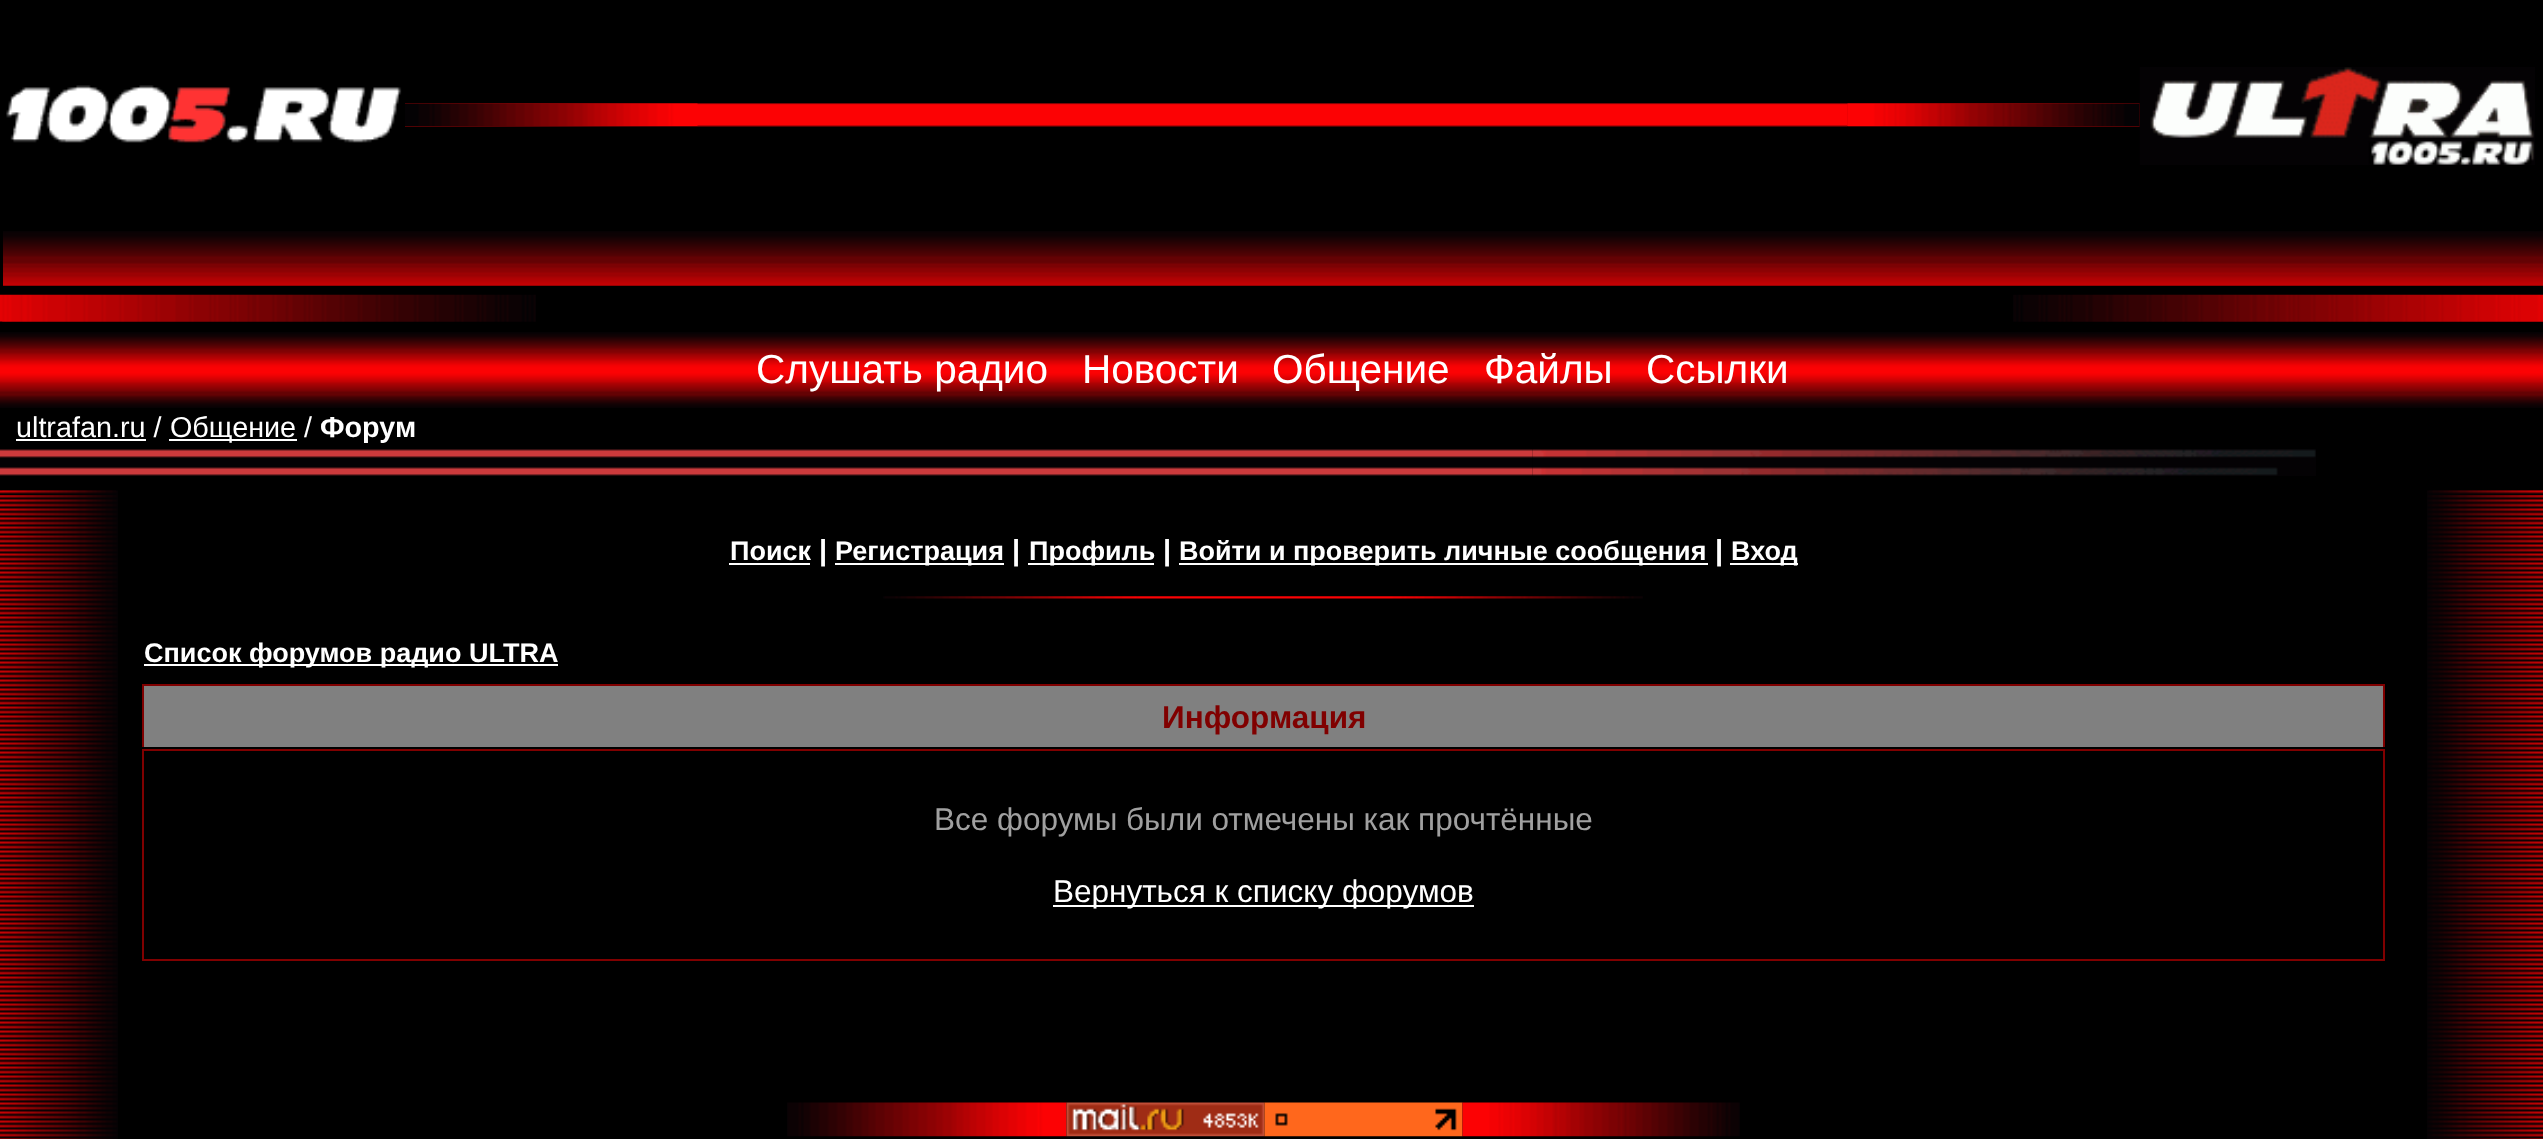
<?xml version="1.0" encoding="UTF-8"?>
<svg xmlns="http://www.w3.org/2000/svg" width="2543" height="1139">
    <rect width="100%" height="100%" fill="#000000"/>
    <image x="6" y="85" width="396" height="58" href="img_01.png"/>
    <image x="405" y="103" width="1443" height="24" href="img_02.png"/>
    <image x="405" y="103" width="293" height="23" href="img_03.png"/>
    <image x="1847" y="103" width="293" height="24" href="img_04.png"/>
    <image x="1847" y="103" width="293" height="23" href="img_05.png"/>
    <image x="2139" y="67" width="396" height="98" href="img_06.png"/>
    <image x="3" y="231" width="2540" height="55" href="img_07.png"/>
    <image x="0" y="294" width="536" height="28" href="img_08.png"/>
    <image x="2013" y="294" width="530" height="28" href="img_09.png"/>
    <image x="0" y="321" width="3" height="1" href="img_10.png"/>
    <image x="0" y="332" width="2543" height="76" href="img_11.png"/>
    <text x="756" y="383" font-family="Liberation Sans" font-size="40.5" fill="#FFFFFF">Слушать радио</text>
    <text x="1082" y="383" font-family="Liberation Sans" font-size="40.5" fill="#FFFFFF">Новости</text>
    <text x="1272" y="383" font-family="Liberation Sans" font-size="40.5" fill="#FFFFFF">Общение</text>
    <text x="1484" y="383" font-family="Liberation Sans" font-size="40.5" fill="#FFFFFF">Файлы</text>
    <text x="1646" y="383" font-family="Liberation Sans" font-size="40.5" fill="#FFFFFF">Ссылки</text>
    <text x="16" y="437" font-family="Liberation Sans" font-size="28.75" fill="#FFFFFF">ultrafan.ru /</text>
    <rect x="16" y="439" width="130" height="2" fill="#FFFFFF"/>
    <rect x="169" y="439" width="128" height="2" fill="#FFFFFF"/>
    <text x="170" y="437" font-family="Liberation Sans" font-size="28.75" fill="#FFFFFF">Общение /</text>
    <text x="320" y="437" font-family="Liberation Sans" font-size="28.75" font-weight="700" fill="#FFFFFF">Форум</text>
    <image x="0" y="449" width="1533" height="27" href="img_12.png"/>
    <image x="1532" y="449" width="784" height="27" href="img_13.png"/>
    <image x="0" y="490" width="118" height="649" href="img_15.png"/>
    <image x="0" y="490" width="3" height="1" href="img_14.png"/>
    <image x="0" y="490" width="116" height="5" href="img_16.png"/>
    <text x="730" y="560" font-family="Liberation Sans" font-size="27" font-weight="700" fill="#FFFFFF">Поиск</text>
    <rect x="729" y="563" width="81" height="2" fill="#FFFFFF"/>
    <text x="819" y="560" font-family="Liberation Sans" font-size="29" font-weight="700" fill="#FFFFFF">|</text>
    <rect x="835" y="563" width="169" height="2" fill="#FFFFFF"/>
    <text x="835" y="560" font-family="Liberation Sans" font-size="27" font-weight="700" fill="#FFFFFF">Регистрация</text>
    <text x="1012" y="560" font-family="Liberation Sans" font-size="29" font-weight="700" fill="#FFFFFF">|</text>
    <rect x="1028" y="563" width="126" height="2" fill="#FFFFFF"/>
    <text x="1029" y="560" font-family="Liberation Sans" font-size="27" font-weight="700" fill="#FFFFFF">Профиль</text>
    <text x="1163" y="560" font-family="Liberation Sans" font-size="29" font-weight="700" fill="#FFFFFF">|</text>
    <rect x="1179" y="563" width="529" height="2" fill="#FFFFFF"/>
    <text x="1179" y="560" font-family="Liberation Sans" font-size="27" font-weight="700" fill="#FFFFFF">Войти и проверить личные сообщения</text>
    <text x="1715" y="560" font-family="Liberation Sans" font-size="29" font-weight="700" fill="#FFFFFF">|</text>
    <rect x="1730" y="563" width="68" height="2" fill="#FFFFFF"/>
    <text x="1731" y="560" font-family="Liberation Sans" font-size="27" font-weight="700" fill="#FFFFFF">Вход</text>
    <image x="883" y="596" width="760" height="3" href="img_17.png"/>
    <rect x="144" y="664" width="414" height="2" fill="#FFFFFF"/>
    <text x="144" y="662" font-family="Liberation Sans" font-size="27" font-weight="700" fill="#FFFFFF">Список форумов радио ULTRA</text>
    <rect x="144" y="686" width="2239" height="61" fill="#808080"/>
    <rect x="142" y="684" width="2243" height="2" fill="#800000"/>
    <rect x="2383" y="684" width="2" height="63" fill="#800000"/>
    <rect x="142" y="684" width="2" height="63" fill="#800000"/>
    <text x="1162" y="728" font-family="Liberation Sans" font-size="31.5" font-weight="700" fill="#800000">Информация</text>
    <rect x="143" y="750" width="2241" height="210" fill="none" stroke="#800000" stroke-width="2"/>
    <text x="934" y="830" font-family="Liberation Sans" font-size="31.5" fill="#A0A0A0">Все форумы были отмечены как прочтённые</text>
    <rect x="1053" y="905" width="421" height="2" fill="#FFFFFF"/>
    <text x="1053" y="902" font-family="Liberation Sans" font-size="31.5" fill="#FFFFFF">Вернуться к списку форумов</text>
    <image x="787" y="1102" width="280" height="35" href="img_18.png"/>
    <image x="1066" y="1102" width="199" height="35" href="img_19.png"/>
    <image x="1264" y="1102" width="199" height="35" href="img_20.png"/>
    <image x="1462" y="1102" width="278" height="35" href="img_21.png"/>
    <image x="2427" y="490" width="116" height="649" href="img_22.png"/>
    <image x="2429" y="490" width="114" height="5" href="img_23.png"/>
</svg>
